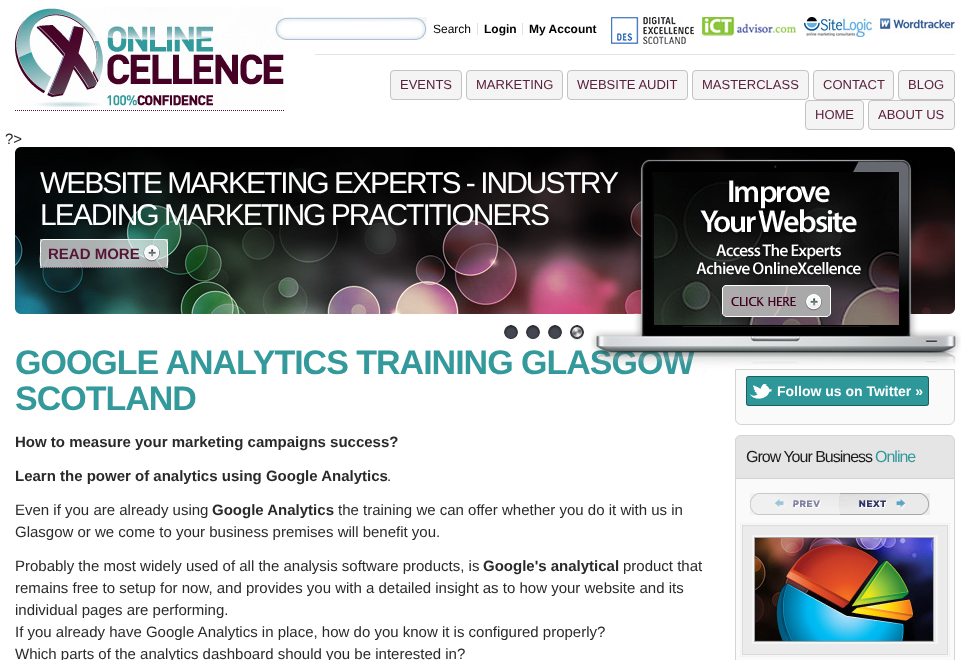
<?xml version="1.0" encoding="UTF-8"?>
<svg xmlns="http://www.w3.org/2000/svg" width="969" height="660">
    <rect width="100%" height="100%" fill="#FFFFFF"/>
    <image x="15" y="7" width="269" height="100" href="img_01.png"/>
    <path d="M 15 110.5 H 284" fill="none" stroke="#561537" stroke-dasharray="1 1"/>
    <image x="275" y="17" width="152" height="23" href="img_02.png"/>
    <rect x="477" y="23" width="1" height="12" fill="#E3E3E3"/>
    <text x="433" y="33" font-family="Liberation Sans" font-size="12" fill="#000000">Search</text>
    <rect x="522" y="23" width="1" height="12" fill="#E3E3E3"/>
    <text x="484" y="33" font-family="Liberation Sans" font-size="12" font-weight="700" fill="#000000">Login</text>
    <text x="529" y="33" font-family="Liberation Sans" font-size="12" font-weight="700" fill="#000000">My Account</text>
    <image x="611" y="17" width="83" height="27" href="img_03.png"/>
    <image x="702" y="17" width="94" height="19" href="img_04.png"/>
    <image x="804" y="17" width="68" height="20" href="img_05.png"/>
    <image x="880" y="18" width="75" height="16" href="img_06.png"/>
    <rect x="315" y="54" width="640" height="1" fill="#E3E3E3"/>
    <rect x="390.5" y="70.5" width="71" height="29" rx="3.5" fill="#F4F4F4" stroke="#C3C3C3"/>
    <text x="400" y="89" font-family="Liberation Sans" font-size="13" fill="#5A213C">EVENTS</text>
    <rect x="466.5" y="70.5" width="96" height="29" rx="3.5" fill="#F4F4F4" stroke="#C3C3C3"/>
    <text x="476" y="89" font-family="Liberation Sans" font-size="13" fill="#5A213C">MARKETING</text>
    <rect x="567.5" y="70.5" width="120" height="29" rx="3.5" fill="#F4F4F4" stroke="#C3C3C3"/>
    <text x="577" y="89" font-family="Liberation Sans" font-size="13" fill="#5A213C">WEBSITE AUDIT</text>
    <rect x="692.5" y="70.5" width="116" height="29" rx="3.5" fill="#F4F4F4" stroke="#C3C3C3"/>
    <text x="702" y="89" font-family="Liberation Sans" font-size="13" fill="#5A213C">MASTERCLASS</text>
    <rect x="813.5" y="70.5" width="80" height="29" rx="3.5" fill="#F4F4F4" stroke="#C3C3C3"/>
    <text x="823" y="89" font-family="Liberation Sans" font-size="13" fill="#5A213C">CONTACT</text>
    <rect x="898.5" y="70.5" width="56" height="29" rx="3.5" fill="#F4F4F4" stroke="#C3C3C3"/>
    <text x="908" y="89" font-family="Liberation Sans" font-size="13" fill="#5A213C">BLOG</text>
    <rect x="805.5" y="100.5" width="58" height="29" rx="3.5" fill="#F4F4F4" stroke="#C3C3C3"/>
    <text x="815" y="119" font-family="Liberation Sans" font-size="13" fill="#5A213C">HOME</text>
    <rect x="868.5" y="100.5" width="86" height="29" rx="3.5" fill="#F4F4F4" stroke="#C3C3C3"/>
    <text x="878" y="119" font-family="Liberation Sans" font-size="13" fill="#5A213C">ABOUT US</text>
    <text x="5" y="144" font-family="Liberation Sans" font-size="15" fill="#2A2A2A">?&gt;</text>
    <image x="15" y="147" width="940" height="167" href="img_07.png"/>
    <text font-family="Liberation Sans" font-size="30" letter-spacing="-2" fill="#FFFFFF">
        <tspan x="40" y="193">WEBSITE MARKETING EXPERTS - INDUSTRY</tspan>
        <tspan x="40" y="225">LEADING MARKETING PRACTITIONERS</tspan>
    </text>
    <rect x="40" y="239" width="128" height="29" fill="#F3F3F3" fill-opacity="0.69"/>
    <path d="M 166.5 266.5 C 166 267 165 267.5 164 267.5 H 44 C 43 267.5 42 267 41.5 266.5" fill="none" stroke="#561537" stroke-dasharray="1 1"/>
    <path d="M 41.5 266.5 C 39.5 264.5 40.5 256 40.5 253.5 V 246.5 C 40.5 244 40 239.5 44 239.5 H 164 C 168 239.5 167.5 244 167.5 246.5 V 253.5 C 167.5 256 168.5 264.5 166.5 266.5" fill="none" stroke="#FFFFFF"/>
    <text x="48" y="259" font-family="Liberation Sans" font-size="15" font-weight="700" fill="#561537">READ MORE</text>
    <image x="143" y="245" width="17" height="17" href="img_08.png"/>
    <text x="15" y="374" font-family="Liberation Sans" font-size="34" font-weight="700" letter-spacing="-1" fill="#33999B">GOOGLE ANALYTICS TRAINING GLASGOW</text>
    <path d="M 735.5 369.5 H 954.5 V 419 C 954.5 422 952 424.5 949 424.5 H 741 C 738 424.5 735.5 422 735.5 419 Z" fill="#FAFAFA" stroke="#D4D4D4"/>
    <image x="591" y="159" width="370" height="214" href="img_09.png"/>
    <image x="504" y="325" width="14" height="15" href="img_10.png"/>
    <image x="526" y="325" width="14" height="15" href="img_10.png"/>
    <image x="548" y="325" width="14" height="15" href="img_10.png"/>
    <image x="570" y="325" width="14" height="15" href="img_11.png"/>
    <text x="15" y="410" font-family="Liberation Sans" font-size="34" font-weight="700" letter-spacing="-1" fill="#33999B">SCOTLAND</text>
    <text x="15" y="447" font-family="Liberation Sans" font-size="15" font-weight="700" fill="#2A2A2A">How to measure your marketing campaigns success?</text>
    <text x="15" y="481" font-family="Liberation Sans" font-size="15" font-weight="700" fill="#2A2A2A">Learn the power of analytics using Google Analytics</text>
    <text x="387" y="481" font-family="Liberation Sans" font-size="15" fill="#2A2A2A">.</text>
    <text x="15" y="515" font-family="Liberation Sans" font-size="15" fill="#2A2A2A">Even if you are already using</text>
    <text x="212" y="515" font-family="Liberation Sans" font-size="15" font-weight="700" fill="#2A2A2A">Google Analytics</text>
    <text x="338" y="515" font-family="Liberation Sans" font-size="15" fill="#2A2A2A">the training we can offer whether you do it with us in</text>
    <text x="15" y="537" font-family="Liberation Sans" font-size="15" fill="#2A2A2A">Glasgow or we come to your business premises will benefit you.</text>
    <text x="15" y="571" font-family="Liberation Sans" font-size="15" fill="#2A2A2A">Probably the most widely used of all the analysis software products, is</text>
    <text x="483" y="571" font-family="Liberation Sans" font-size="15" font-weight="700" fill="#2A2A2A">Google's analytical</text>
    <text x="623" y="571" font-family="Liberation Sans" font-size="15" fill="#2A2A2A">product that</text>
    <text font-family="Liberation Sans" font-size="15" fill="#2A2A2A">
        <tspan x="15" y="593">remains free to setup for now, and provides you with a detailed insight as to how your website and its</tspan>
        <tspan x="15" y="615">individual pages are performing.</tspan>
        <tspan x="15" y="637">If you already have Google Analytics in place, how do you know it is configured properly?</tspan>
        <tspan x="15" y="659">Which parts of the analytics dashboard should you be interested in?</tspan>
    </text>
    <rect x="746" y="376" width="183" height="30" rx="3" fill="#2E979A"/>
    <image x="750" y="384" width="22" height="15" href="img_12.png"/>
    <rect x="746.5" y="376.5" width="182" height="29" rx="2.5" fill="none" stroke="#196062"/>
    <text x="777" y="396" font-family="Liberation Sans" font-size="14" font-weight="700" fill="#FFFFFF">Follow us on Twitter »</text>
    <path d="M 741 435 H 949 C 952.5 435 955 437.5 955 441 V 478 H 735 V 441 C 735 437.5 737.5 435 741 435 Z" fill="#E5E5E5"/>
    <path d="M 741 435 H 949 C 952 435 955 438 955 441 V 478 H 735 V 441 C 735 438 738 435 741 435 Z M 741 436 H 949 C 952 436 954 438 954 441 V 478 H 736 V 441 C 736 438 738 436 741 436 Z" fill="#D4D4D4" fill-rule="evenodd"/>
    <text x="746" y="462" font-family="Liberation Sans" font-size="16" letter-spacing="-1" fill="#1B1B1B">Grow Your Business</text>
    <text x="875" y="462" font-family="Liberation Sans" font-size="16" letter-spacing="-1" fill="#33999B">Online</text>
    <rect x="735.5" y="478.5" width="219" height="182" fill="#FAFAFA" stroke="#D4D4D4"/>
    <image x="750" y="493" width="90" height="22" href="img_13.png"/>
    <image x="840" y="493" width="90" height="22" href="img_14.png"/>
    <rect x="740.5" y="523.5" width="209" height="133" fill="none" stroke="#F3F3F3"/>
    <rect x="741.5" y="524.5" width="207" height="131" fill="none" stroke="#F7F7F7"/>
    <rect x="742.5" y="525.5" width="205" height="129" fill="#EBEBEB" stroke="#DBDBDB"/>
    <rect x="752.5" y="535.5" width="185" height="108" fill="none" stroke="#F3F3F3"/>
    <rect x="753.5" y="536.5" width="183" height="106" fill="none" stroke="#F7F7F7"/>
    <rect x="754.5" y="537.5" width="179" height="104" fill="none" stroke="#A4A4A4"/>
    <image x="755" y="538" width="178" height="103" href="img_15.png"/>
</svg>
